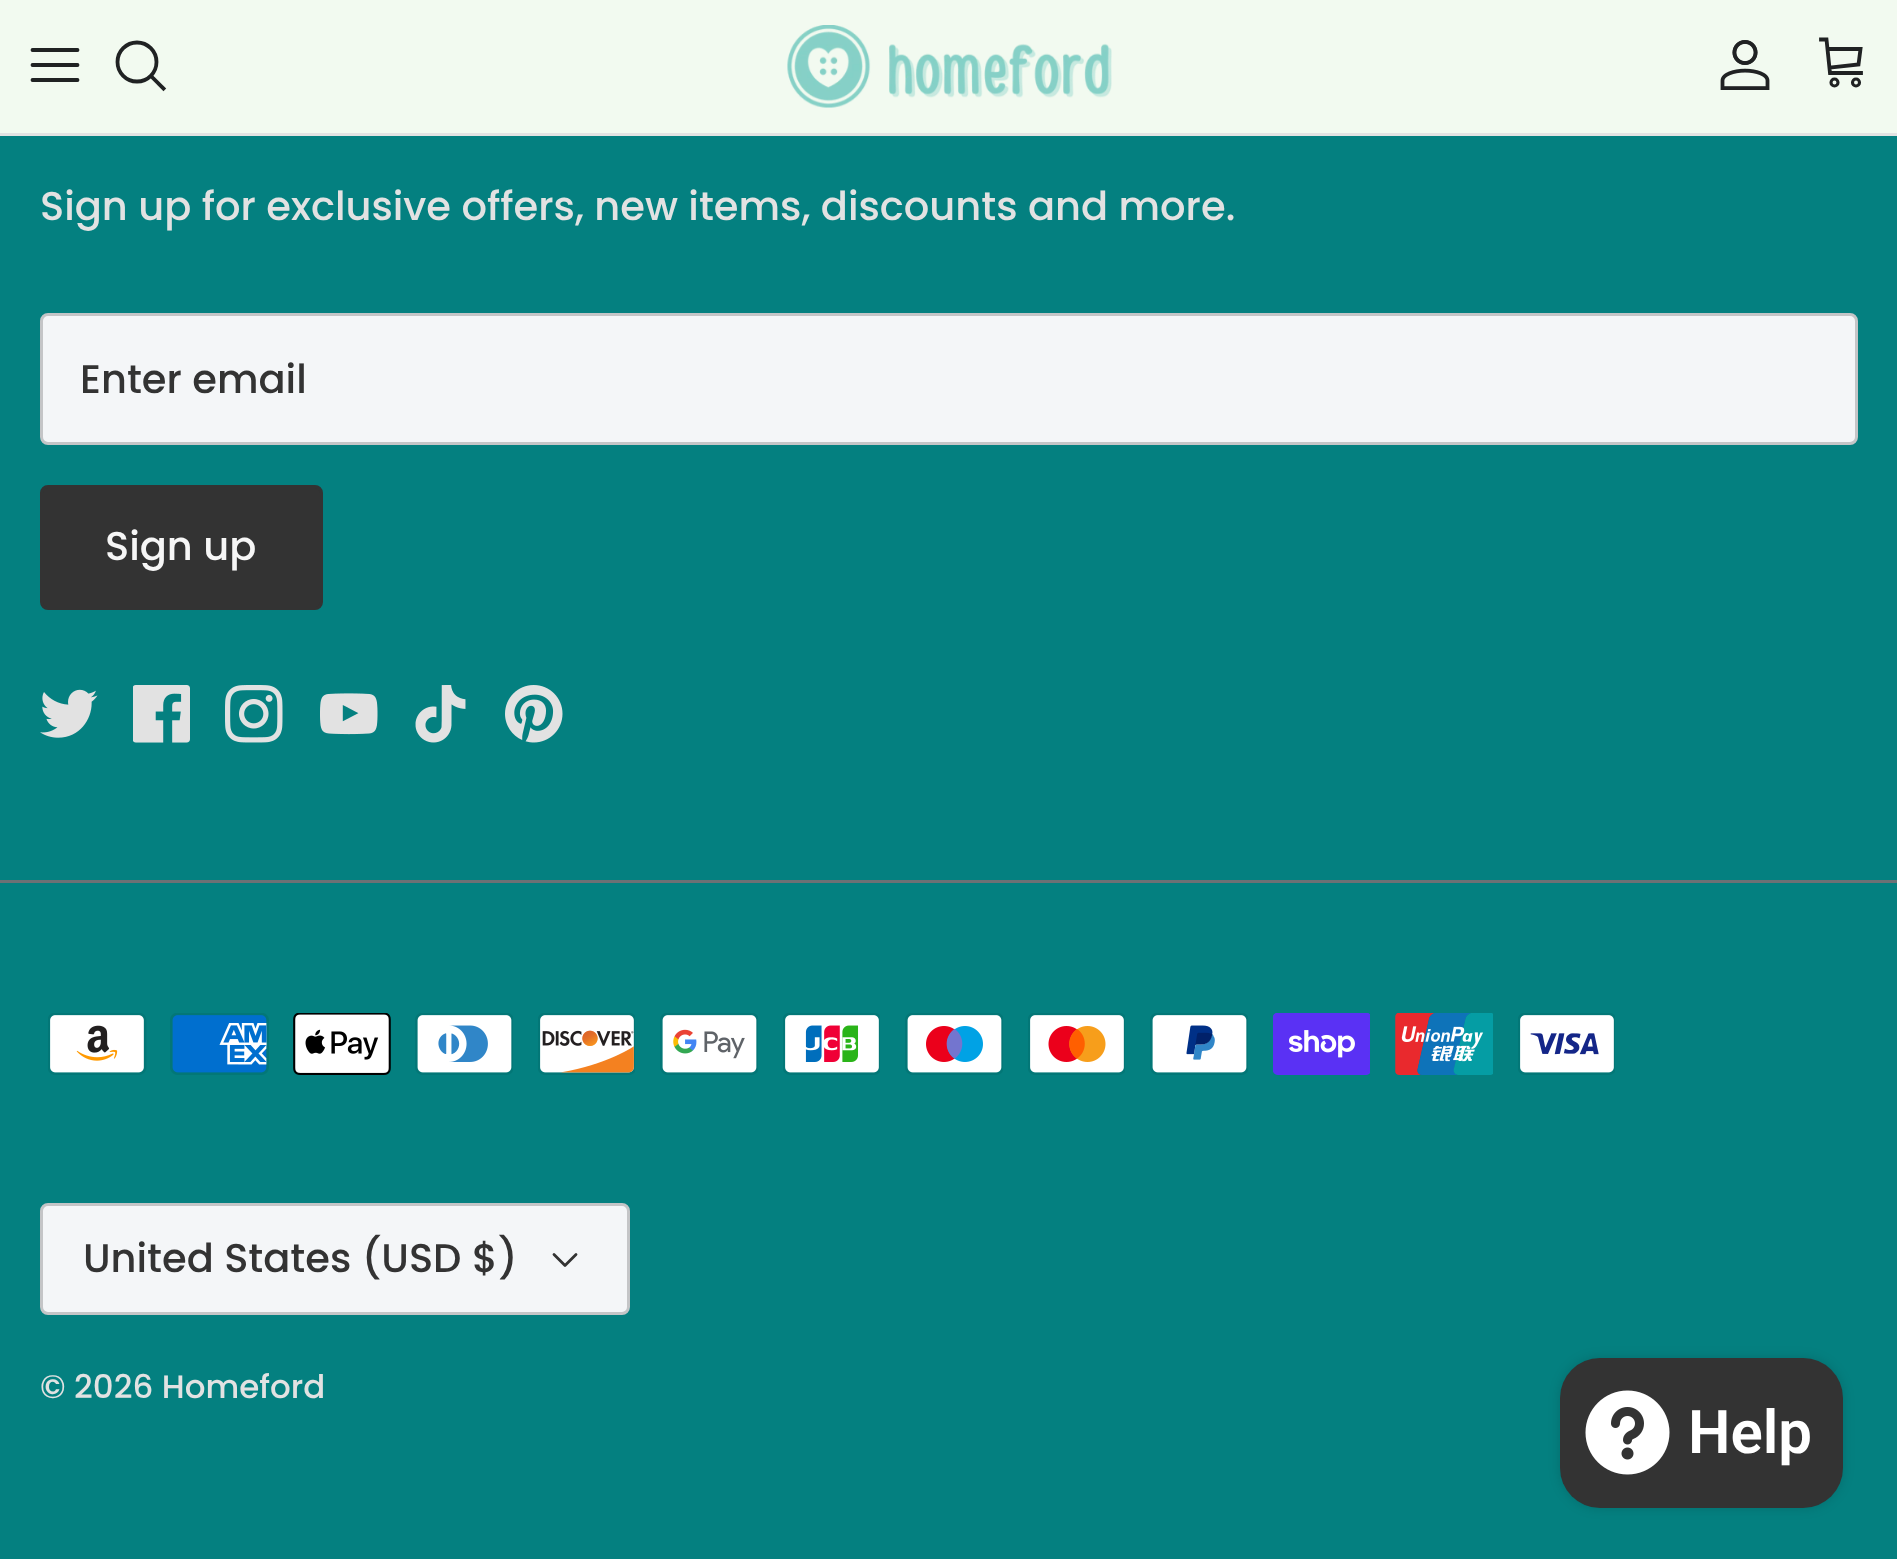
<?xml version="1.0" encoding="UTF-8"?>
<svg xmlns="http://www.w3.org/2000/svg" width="1897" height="1559">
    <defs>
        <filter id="blur1" x="-50%" y="-200%" width="200%" height="500%"><feGaussianBlur stdDeviation="6"/></filter>
    </defs>
    <rect width="100%" height="100%" fill="#048080"/>
    <rect x="0" y="0" width="1897" height="133" fill="#F2FAF0"/>
    <rect x="0" y="133" width="1897" height="3" fill="#E2E2E2"/>
    <path d="M 32.5 65 H 77.5 M 32.5 50 H 77.5 M 32.5 80 H 77.5" fill="none" stroke="#202223" stroke-width="3.8" stroke-linecap="round" stroke-linejoin="round"/>
    <circle cx="137" cy="62" r="19.5" fill="none" stroke="#202223" stroke-width="3.8"/>
    <path d="M 152.5 77.5 L 163.5 88.5" fill="none" stroke="#202223" stroke-width="3.8" stroke-linecap="square"/>
    <image x="787" y="25" width="325" height="83" href="img_01.png"/>
    <image x="1720" y="40" width="50" height="50" href="img_02.png"/>
    <path d="M 1821 39.5 H 1826.5 L 1830 73 H 1861 M 1828 49 H 1860.5 L 1858.5 64.5 L 1831.5 67.5" fill="none" stroke="#202223" stroke-width="3.8" stroke-linecap="square"/>
    <circle cx="1834.5" cy="82.5" r="3.5" fill="none" stroke="#202223" stroke-width="3.1"/>
    <circle cx="1856" cy="82.5" r="3.5" fill="none" stroke="#202223" stroke-width="3.1"/>
    <text x="40" y="220" font-family="Poppins" font-size="40" font-weight="500" fill="#E2E2E2">Sign up for exclusive offers, new items, discounts and more.</text>
    <rect x="41.5" y="314.5" width="1815" height="129" rx="6.5" fill="#F4F6F8" stroke="#C4C5C7" stroke-width="3"/>
    <text x="80" y="393" font-family="Poppins" font-size="40" font-weight="500" fill="#333333">Enter email</text>
    <rect x="41.5" y="486.5" width="280" height="122" rx="6.5" fill="#333333" stroke="#333333" stroke-width="3"/>
    <text x="105" y="560" font-family="Poppins" font-size="40" font-weight="500" fill="#F6F6F6">Sign up</text>
    <image x="40" y="689" width="58" height="49" href="img_03.png"/>
    <image x="133" y="685" width="57" height="58" href="img_04.png"/>
    <image x="225" y="685" width="58" height="58" href="img_05.png"/>
    <image x="320" y="693" width="58" height="42" href="img_06.png"/>
    <image x="415" y="685" width="51" height="58" href="img_07.png"/>
    <image x="505" y="685" width="58" height="58" href="img_08.png"/>
    <rect x="0" y="880" width="1897" height="3" fill="#6D7175"/>
    <image x="48" y="1013" width="99" height="62" href="img_09.png"/>
    <image x="170" y="1013" width="99" height="62" href="img_10.png"/>
    <image x="293" y="1013" width="98" height="62" href="img_11.png"/>
    <image x="415" y="1013" width="98" height="62" href="img_12.png"/>
    <image x="538" y="1013" width="97" height="62" href="img_13.png"/>
    <image x="660" y="1013" width="98" height="62" href="img_14.png"/>
    <image x="783" y="1013" width="97" height="62" href="img_15.png"/>
    <image x="905" y="1013" width="98" height="62" href="img_16.png"/>
    <image x="1028" y="1013" width="97" height="62" href="img_17.png"/>
    <image x="1150" y="1013" width="98" height="62" href="img_18.png"/>
    <image x="1273" y="1013" width="97" height="62" href="img_19.png"/>
    <image x="1395" y="1013" width="98" height="62" href="img_20.png"/>
    <image x="1518" y="1013" width="97" height="62" href="img_21.png"/>
    <rect x="41.5" y="1204.5" width="587" height="109" rx="6.5" fill="#F4F6F8" stroke="#C4C5C7" stroke-width="3"/>
    <text x="83" y="1272" font-family="Poppins" font-size="40" font-weight="500" fill="#333333">United States (USD $)</text>
    <path d="M 554 1254.5 L 565 1265.5 L 576 1254.5" fill="none" stroke="#333333" stroke-width="2.8" stroke-linecap="round" stroke-linejoin="round"/>
    <text x="40" y="1398" font-family="Poppins" font-size="32.5" font-weight="500" fill="#E2E2E2">© 2026 Homeford</text>
    <rect x="1560" y="1358" width="283" height="150" rx="40" fill="#000000" fill-opacity="0.15" filter="url(#blur1)"/>
    <rect x="1560" y="1358" width="283" height="150" rx="40" fill="#333333"/>
    <image x="1585" y="1390" width="85" height="85" href="img_22.png"/>
    <text x="1688" y="1453" font-family="Roboto" font-size="60" font-weight="600" fill="#FFFFFF">Help</text>
</svg>
